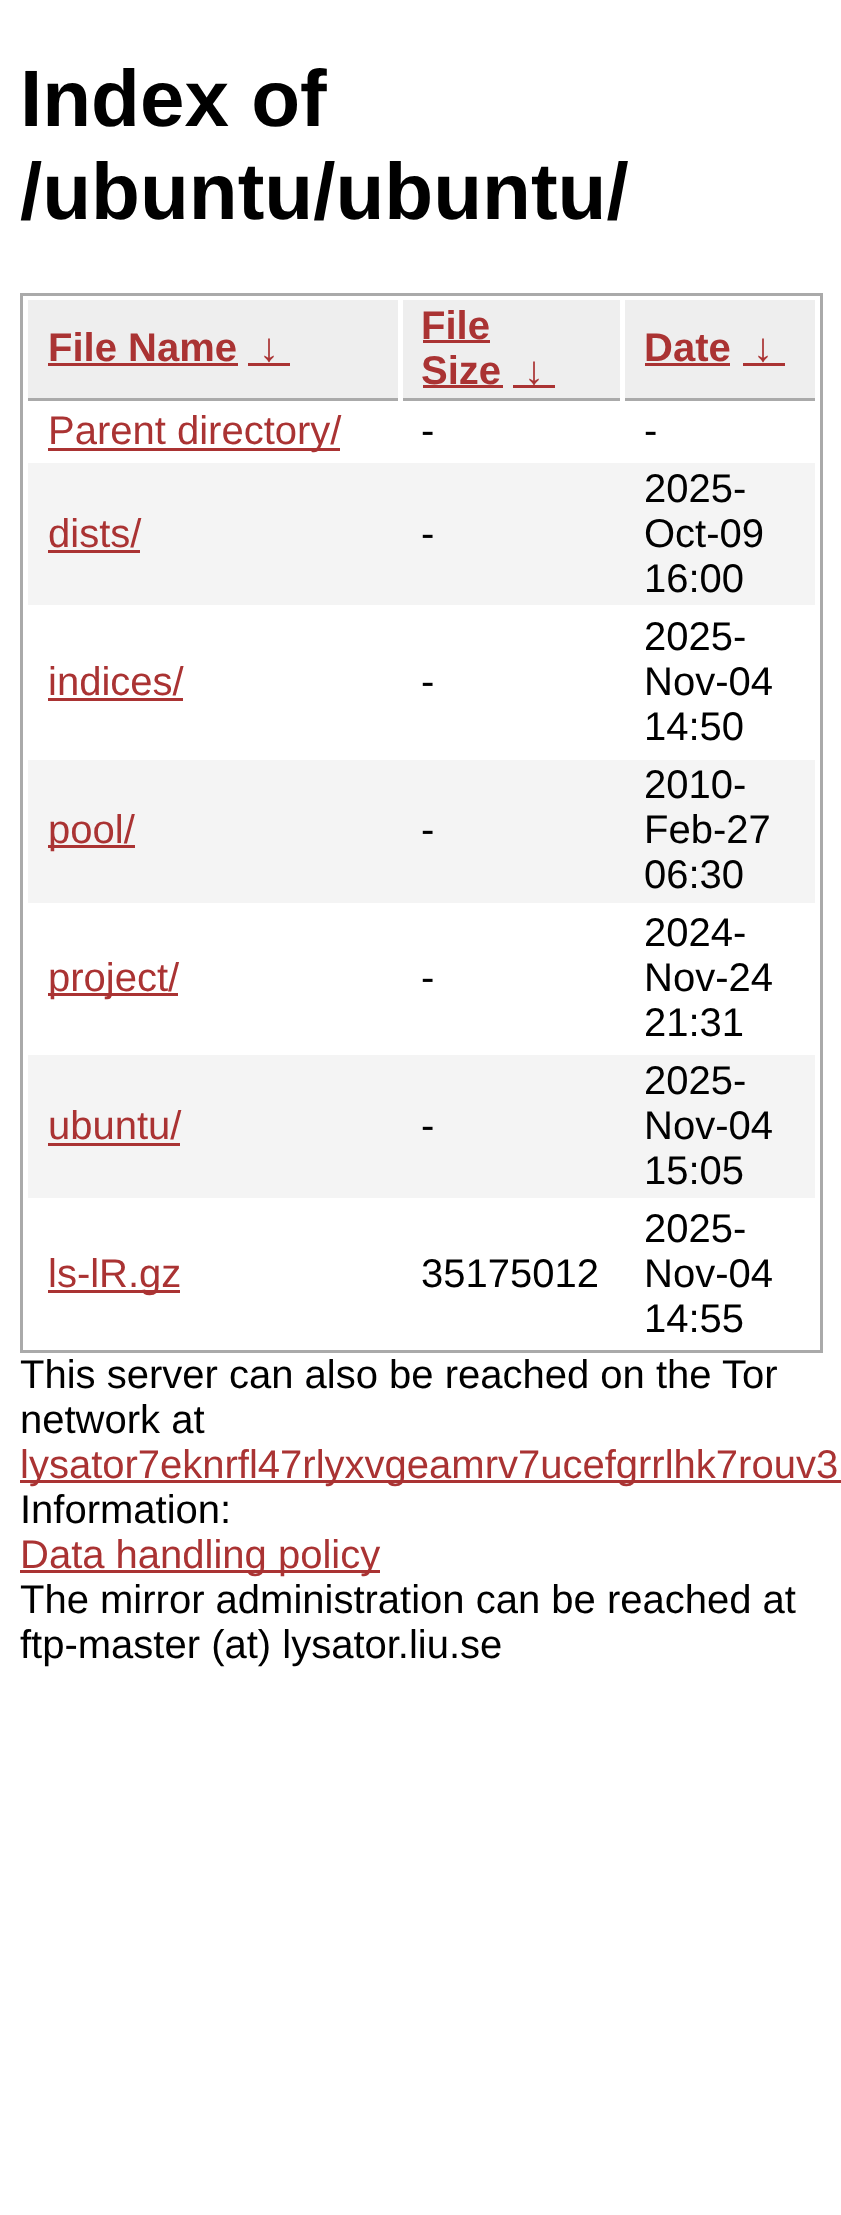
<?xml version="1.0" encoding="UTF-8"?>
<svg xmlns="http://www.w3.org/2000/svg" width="841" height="2215">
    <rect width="100%" height="100%" fill="#FFFFFF"/>
    <text font-family="Liberation Sans" font-size="80" font-weight="700" fill="#000000">
        <tspan x="20" y="126">Index of</tspan>
        <tspan x="20" y="219">/ubuntu/ubuntu/</tspan>
    </text>
    <rect x="21.5" y="294.5" width="800" height="1057" fill="none" stroke="#AAAAAA" stroke-width="3"/>
    <rect x="28" y="300" width="370" height="98" fill="#EEEEEE"/>
    <rect x="28" y="398" width="370" height="3" fill="#AAAAAA"/>
    <text x="48" y="361" font-family="Liberation Sans" font-size="40" font-weight="700" fill="#AA3333">File Name</text>
    <rect x="48" y="363" width="190" height="3" fill="#AA3333"/>
    <text x="259" y="361" font-family="Liberation Sans" font-size="40" font-weight="700" fill="#AA3333">↓</text>
    <rect x="248" y="363" width="42" height="3" fill="#AA3333"/>
    <rect x="403" y="300" width="217" height="98" fill="#EEEEEE"/>
    <rect x="403" y="398" width="217" height="3" fill="#AAAAAA"/>
    <text x="421" y="339" font-family="Liberation Sans" font-size="40" font-weight="700" fill="#AA3333">File</text>
    <rect x="423" y="340" width="67" height="3" fill="#AA3333"/>
    <text x="421" y="384" font-family="Liberation Sans" font-size="40" font-weight="700" fill="#AA3333">Size</text>
    <rect x="423" y="385" width="80" height="3" fill="#AA3333"/>
    <rect x="513" y="385" width="42" height="3" fill="#AA3333"/>
    <text x="524" y="384" font-family="Liberation Sans" font-size="40" font-weight="700" fill="#AA3333">↓</text>
    <rect x="625" y="300" width="190" height="98" fill="#EEEEEE"/>
    <rect x="625" y="398" width="190" height="3" fill="#AAAAAA"/>
    <text x="644" y="361" font-family="Liberation Sans" font-size="40" font-weight="700" fill="#AA3333">Date</text>
    <rect x="645" y="363" width="85" height="3" fill="#AA3333"/>
    <text x="753" y="361" font-family="Liberation Sans" font-size="40" font-weight="700" fill="#AA3333">↓</text>
    <rect x="743" y="363" width="42" height="3" fill="#AA3333"/>
    <rect x="48" y="448" width="292" height="3" fill="#AA3333"/>
    <text x="48" y="444" font-family="Liberation Sans" font-size="40" fill="#AA3333">Parent directory/</text>
    <text x="421" y="444" font-family="Liberation Sans" font-size="40" fill="#000000">-</text>
    <text x="644" y="444" font-family="Liberation Sans" font-size="40" fill="#000000">-</text>
    <rect x="28" y="463" width="787" height="142" fill="#F4F4F4"/>
    <text x="48" y="547" font-family="Liberation Sans" font-size="40" fill="#AA3333">dists/</text>
    <rect x="48" y="550" width="92" height="3" fill="#AA3333"/>
    <text x="421" y="547" font-family="Liberation Sans" font-size="40" fill="#000000">-</text>
    <text font-family="Liberation Sans" font-size="40" fill="#000000">
        <tspan x="644" y="502">2025-</tspan>
        <tspan x="644" y="547">Oct-09</tspan>
        <tspan x="644" y="592">16:00</tspan>
    </text>
    <text x="48" y="695" font-family="Liberation Sans" font-size="40" fill="#AA3333">indices/</text>
    <rect x="48" y="698" width="135" height="3" fill="#AA3333"/>
    <text x="421" y="695" font-family="Liberation Sans" font-size="40" fill="#000000">-</text>
    <text font-family="Liberation Sans" font-size="40" fill="#000000">
        <tspan x="644" y="650">2025-</tspan>
        <tspan x="644" y="695">Nov-04</tspan>
        <tspan x="644" y="740">14:50</tspan>
    </text>
    <rect x="28" y="760" width="787" height="143" fill="#F4F4F4"/>
    <rect x="48" y="845" width="87" height="3" fill="#AA3333"/>
    <text x="48" y="843" font-family="Liberation Sans" font-size="40" fill="#AA3333">pool/</text>
    <text x="421" y="843" font-family="Liberation Sans" font-size="40" fill="#000000">-</text>
    <text font-family="Liberation Sans" font-size="40" fill="#000000">
        <tspan x="644" y="798">2010-</tspan>
        <tspan x="644" y="843">Feb-27</tspan>
        <tspan x="644" y="888">06:30</tspan>
    </text>
    <rect x="48" y="993" width="130" height="3" fill="#AA3333"/>
    <text x="48" y="991" font-family="Liberation Sans" font-size="40" fill="#AA3333">project/</text>
    <text x="421" y="991" font-family="Liberation Sans" font-size="40" fill="#000000">-</text>
    <text font-family="Liberation Sans" font-size="40" fill="#000000">
        <tspan x="644" y="946">2024-</tspan>
        <tspan x="644" y="991">Nov-24</tspan>
        <tspan x="644" y="1036">21:31</tspan>
    </text>
    <rect x="28" y="1055" width="787" height="143" fill="#F4F4F4"/>
    <text x="48" y="1139" font-family="Liberation Sans" font-size="40" fill="#AA3333">ubuntu/</text>
    <rect x="48" y="1143" width="132" height="3" fill="#AA3333"/>
    <text x="421" y="1139" font-family="Liberation Sans" font-size="40" fill="#000000">-</text>
    <text font-family="Liberation Sans" font-size="40" fill="#000000">
        <tspan x="644" y="1094">2025-</tspan>
        <tspan x="644" y="1139">Nov-04</tspan>
        <tspan x="644" y="1184">15:05</tspan>
    </text>
    <rect x="48" y="1290" width="132" height="3" fill="#AA3333"/>
    <text x="48" y="1287" font-family="Liberation Sans" font-size="40" fill="#AA3333">ls-lR.gz</text>
    <text x="421" y="1287" font-family="Liberation Sans" font-size="40" fill="#000000">35175012</text>
    <text font-family="Liberation Sans" font-size="40" fill="#000000">
        <tspan x="644" y="1242">2025-</tspan>
        <tspan x="644" y="1287">Nov-04</tspan>
        <tspan x="644" y="1332">14:55</tspan>
    </text>
    <text font-family="Liberation Sans" font-size="40" fill="#000000">
        <tspan x="20" y="1388">This server can also be reached on the Tor</tspan>
        <tspan x="20" y="1433">network at</tspan>
    </text>
    <rect x="20" y="1480" width="821" height="3" fill="#AA3333"/>
    <text x="20" y="1478" font-family="Liberation Sans" font-size="40" fill="#AA3333">lysator7eknrfl47rlyxvgeamrv7ucefgrrlhk7rouv3</text>
    <text x="20" y="1523" font-family="Liberation Sans" font-size="40" fill="#000000">Information:</text>
    <rect x="20" y="1570" width="360" height="3" fill="#AA3333"/>
    <text x="20" y="1568" font-family="Liberation Sans" font-size="40" fill="#AA3333">Data handling policy</text>
    <text font-family="Liberation Sans" font-size="40" fill="#000000">
        <tspan x="20" y="1613">The mirror administration can be reached at</tspan>
        <tspan x="20" y="1658">ftp-master (at) lysator.liu.se</tspan>
    </text>
</svg>
